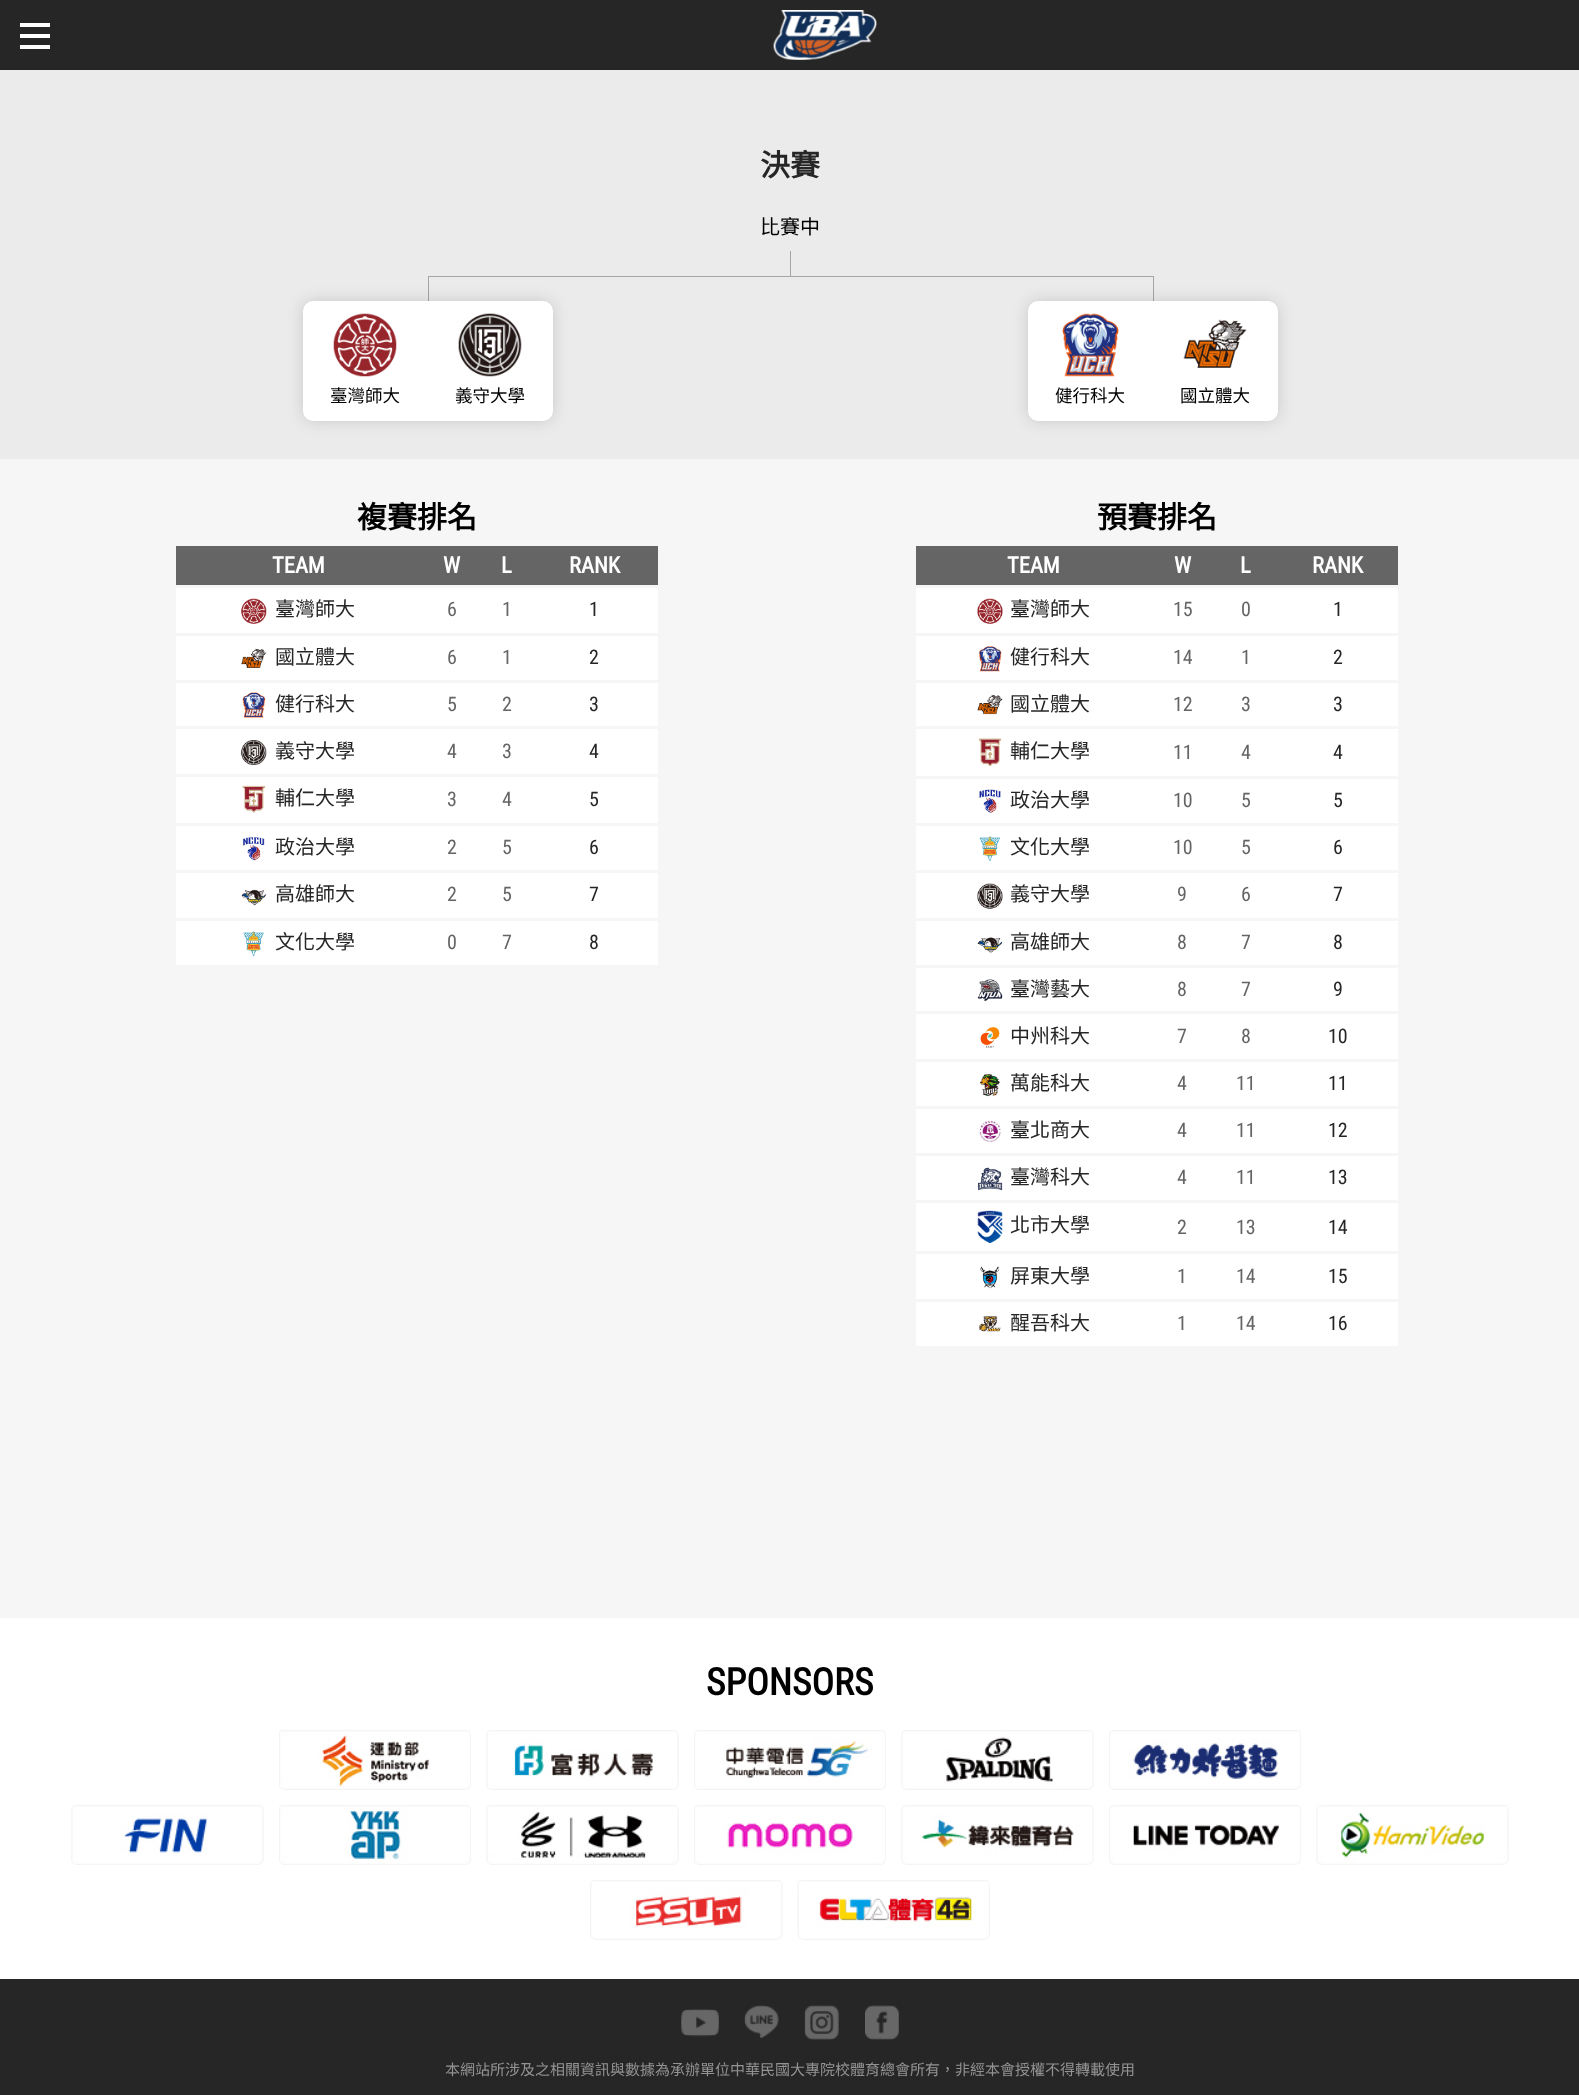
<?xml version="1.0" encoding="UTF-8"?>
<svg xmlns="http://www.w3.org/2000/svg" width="1579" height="2095">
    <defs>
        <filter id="blur1" x="-50%" y="-200%" width="200%" height="500%"><feGaussianBlur stdDeviation="8"/></filter>
    </defs>
    <rect width="100%" height="100%" fill="#F6F6F6"/>
    <rect x="0" y="0" width="1579" height="70" fill="#262626"/>
    <rect x="20" y="23" width="30" height="4" fill="#FFFFFF"/>
    <rect x="20" y="34" width="30" height="4" fill="#FFFFFF"/>
    <rect x="20" y="45" width="30" height="4" fill="#FFFFFF"/>
    <image x="773" y="10" width="104" height="50" href="img_01.png"/>
    <rect x="0" y="70" width="1579" height="389" fill="#EBEBEB"/>
    <text x="760" y="176" font-family="Noto Sans TC" font-size="30" font-weight="700" fill="#262626">決賽</text>
    <text x="760" y="234" font-family="Noto Sans TC" font-size="20" font-weight="100" fill="#000000">比賽中</text>
    <rect x="790" y="251" width="1" height="25" fill="#A6A6A6"/>
    <rect x="428" y="276" width="725" height="1" fill="#A6A6A6"/>
    <rect x="428" y="276" width="1" height="25" fill="#A6A6A6"/>
    <rect x="303" y="301" width="250" height="120" rx="10" fill="#000000" fill-opacity="0.15" filter="url(#blur1)"/>
    <rect x="303" y="301" width="250" height="120" rx="10" fill="#FFFFFF"/>
    <image x="333" y="313" width="64" height="64" href="img_02.png"/>
    <text x="330" y="402" font-family="Noto Sans TC" font-size="17.5" font-weight="100" fill="#000000">臺灣師大</text>
    <image x="458" y="313" width="64" height="64" href="img_03.png"/>
    <text x="455" y="402" font-family="Noto Sans TC" font-size="17.5" font-weight="100" fill="#000000">義守大學</text>
    <rect x="1153" y="276" width="1" height="25" fill="#A6A6A6"/>
    <rect x="1028" y="301" width="250" height="120" rx="10" fill="#000000" fill-opacity="0.15" filter="url(#blur1)"/>
    <rect x="1028" y="301" width="250" height="120" rx="10" fill="#FFFFFF"/>
    <image x="1062" y="313" width="57" height="64" href="img_04.png"/>
    <text x="1055" y="402" font-family="Noto Sans TC" font-size="17.5" font-weight="100" fill="#000000">健行科大</text>
    <image x="1183" y="319" width="64" height="49" href="img_05.png"/>
    <text x="1180" y="402" font-family="Noto Sans TC" font-size="17.5" font-weight="100" fill="#000000">國立體大</text>
    <text x="357" y="528" font-family="Noto Sans TC" font-size="30" font-weight="700" fill="#000000">複賽排名</text>
    <rect x="176" y="546" width="482" height="39" fill="#656565"/>
    <text x="272" y="573" font-family="Roboto Condensed" font-size="22.5" font-weight="700" fill="#FFFFFF">TEAM</text>
    <text x="443" y="573" font-family="Roboto Condensed" font-size="22.5" font-weight="700" fill="#FFFFFF">W</text>
    <text x="501" y="573" font-family="Roboto Condensed" font-size="22.5" font-weight="700" fill="#FFFFFF">L</text>
    <text x="569" y="573" font-family="Roboto Condensed" font-size="22.5" font-weight="700" fill="#FFFFFF">RANK</text>
    <rect x="176" y="588" width="482" height="45" fill="#FFFFFF"/>
    <image x="241" y="598" width="26" height="26" href="img_06.png"/>
    <text x="275" y="616" font-family="Noto Sans TC" font-size="20" font-weight="100" fill="#262626">臺灣師大</text>
    <text x="447" y="616" font-family="Roboto Condensed" font-size="20" fill="#656565">6</text>
    <text x="502" y="616" font-family="Roboto Condensed" font-size="20" fill="#656565">1</text>
    <text x="589" y="616" font-family="Roboto Condensed" font-size="20" fill="#262626">1</text>
    <rect x="176" y="636" width="482" height="44" fill="#FFFFFF"/>
    <image x="241" y="648" width="26" height="20" href="img_07.png"/>
    <text x="275" y="664" font-family="Noto Sans TC" font-size="20" font-weight="100" fill="#262626">國立體大</text>
    <text x="447" y="664" font-family="Roboto Condensed" font-size="20" fill="#656565">6</text>
    <text x="502" y="664" font-family="Roboto Condensed" font-size="20" fill="#656565">1</text>
    <text x="589" y="664" font-family="Roboto Condensed" font-size="20" fill="#262626">2</text>
    <rect x="176" y="683" width="482" height="43" fill="#FFFFFF"/>
    <image x="242" y="692" width="24" height="26" href="img_08.png"/>
    <text x="275" y="711" font-family="Noto Sans TC" font-size="20" font-weight="100" fill="#262626">健行科大</text>
    <text x="447" y="711" font-family="Roboto Condensed" font-size="20" fill="#656565">5</text>
    <text x="502" y="711" font-family="Roboto Condensed" font-size="20" fill="#656565">2</text>
    <text x="589" y="711" font-family="Roboto Condensed" font-size="20" fill="#262626">3</text>
    <rect x="176" y="729" width="482" height="45" fill="#FFFFFF"/>
    <image x="241" y="740" width="26" height="25" href="img_09.png"/>
    <text x="275" y="758" font-family="Noto Sans TC" font-size="20" font-weight="100" fill="#262626">義守大學</text>
    <text x="447" y="758" font-family="Roboto Condensed" font-size="20" fill="#656565">4</text>
    <text x="502" y="758" font-family="Roboto Condensed" font-size="20" fill="#656565">3</text>
    <text x="589" y="758" font-family="Roboto Condensed" font-size="20" fill="#262626">4</text>
    <rect x="176" y="777" width="482" height="46" fill="#FFFFFF"/>
    <image x="242" y="785" width="24" height="28" href="img_10.png"/>
    <text x="275" y="805" font-family="Noto Sans TC" font-size="20" font-weight="100" fill="#262626">輔仁大學</text>
    <text x="447" y="806" font-family="Roboto Condensed" font-size="20" fill="#656565">3</text>
    <text x="502" y="806" font-family="Roboto Condensed" font-size="20" fill="#656565">4</text>
    <text x="589" y="806" font-family="Roboto Condensed" font-size="20" fill="#262626">5</text>
    <rect x="176" y="826" width="482" height="44" fill="#FFFFFF"/>
    <image x="242" y="837" width="23" height="24" href="img_11.png"/>
    <text x="275" y="854" font-family="Noto Sans TC" font-size="20" font-weight="100" fill="#262626">政治大學</text>
    <text x="447" y="854" font-family="Roboto Condensed" font-size="20" fill="#656565">2</text>
    <text x="502" y="854" font-family="Roboto Condensed" font-size="20" fill="#656565">5</text>
    <text x="589" y="854" font-family="Roboto Condensed" font-size="20" fill="#262626">6</text>
    <rect x="176" y="873" width="482" height="45" fill="#FFFFFF"/>
    <image x="241" y="889" width="26" height="17" href="img_12.png"/>
    <text x="275" y="901" font-family="Noto Sans TC" font-size="20" font-weight="100" fill="#262626">高雄師大</text>
    <text x="447" y="901" font-family="Roboto Condensed" font-size="20" fill="#656565">2</text>
    <text x="502" y="901" font-family="Roboto Condensed" font-size="20" fill="#656565">5</text>
    <text x="589" y="901" font-family="Roboto Condensed" font-size="20" fill="#262626">7</text>
    <rect x="176" y="921" width="482" height="44" fill="#FFFFFF"/>
    <image x="243" y="931" width="21" height="26" href="img_13.png"/>
    <text x="275" y="949" font-family="Noto Sans TC" font-size="20" font-weight="100" fill="#262626">文化大學</text>
    <text x="447" y="949" font-family="Roboto Condensed" font-size="20" fill="#656565">0</text>
    <text x="502" y="949" font-family="Roboto Condensed" font-size="20" fill="#656565">7</text>
    <text x="589" y="949" font-family="Roboto Condensed" font-size="20" fill="#262626">8</text>
    <text x="1097" y="528" font-family="Noto Sans TC" font-size="30" font-weight="700" fill="#000000">預賽排名</text>
    <rect x="916" y="546" width="482" height="39" fill="#656565"/>
    <text x="1007" y="573" font-family="Roboto Condensed" font-size="22.5" font-weight="700" fill="#FFFFFF">TEAM</text>
    <text x="1174" y="573" font-family="Roboto Condensed" font-size="22.5" font-weight="700" fill="#FFFFFF">W</text>
    <text x="1240" y="573" font-family="Roboto Condensed" font-size="22.5" font-weight="700" fill="#FFFFFF">L</text>
    <text x="1312" y="573" font-family="Roboto Condensed" font-size="22.5" font-weight="700" fill="#FFFFFF">RANK</text>
    <rect x="916" y="588" width="482" height="45" fill="#FFFFFF"/>
    <image x="977" y="598" width="26" height="26" href="img_14.png"/>
    <text x="1010" y="616" font-family="Noto Sans TC" font-size="20" font-weight="100" fill="#262626">臺灣師大</text>
    <text x="1173" y="616" font-family="Roboto Condensed" font-size="20" fill="#656565">15</text>
    <text x="1241" y="616" font-family="Roboto Condensed" font-size="20" fill="#656565">0</text>
    <text x="1333" y="616" font-family="Roboto Condensed" font-size="20" fill="#262626">1</text>
    <rect x="916" y="636" width="482" height="44" fill="#FFFFFF"/>
    <image x="979" y="646" width="23" height="26" href="img_15.png"/>
    <text x="1010" y="664" font-family="Noto Sans TC" font-size="20" font-weight="100" fill="#262626">健行科大</text>
    <text x="1173" y="664" font-family="Roboto Condensed" font-size="20" fill="#656565">14</text>
    <text x="1241" y="664" font-family="Roboto Condensed" font-size="20" fill="#656565">1</text>
    <text x="1333" y="664" font-family="Roboto Condensed" font-size="20" fill="#262626">2</text>
    <rect x="916" y="683" width="482" height="43" fill="#FFFFFF"/>
    <image x="977" y="694" width="26" height="21" href="img_16.png"/>
    <text x="1010" y="711" font-family="Noto Sans TC" font-size="20" font-weight="100" fill="#262626">國立體大</text>
    <text x="1173" y="711" font-family="Roboto Condensed" font-size="20" fill="#656565">12</text>
    <text x="1241" y="711" font-family="Roboto Condensed" font-size="20" fill="#656565">3</text>
    <text x="1333" y="711" font-family="Roboto Condensed" font-size="20" fill="#262626">3</text>
    <rect x="916" y="729" width="482" height="47" fill="#FFFFFF"/>
    <image x="978" y="738" width="24" height="29" href="img_17.png"/>
    <text x="1010" y="758" font-family="Noto Sans TC" font-size="20" font-weight="100" fill="#262626">輔仁大學</text>
    <text x="1173" y="759" font-family="Roboto Condensed" font-size="20" fill="#656565">11</text>
    <text x="1241" y="759" font-family="Roboto Condensed" font-size="20" fill="#656565">4</text>
    <text x="1333" y="759" font-family="Roboto Condensed" font-size="20" fill="#262626">4</text>
    <rect x="916" y="779" width="482" height="44" fill="#FFFFFF"/>
    <image x="979" y="789" width="22" height="24" href="img_18.png"/>
    <text x="1010" y="807" font-family="Noto Sans TC" font-size="20" font-weight="100" fill="#262626">政治大學</text>
    <text x="1173" y="807" font-family="Roboto Condensed" font-size="20" fill="#656565">10</text>
    <text x="1241" y="807" font-family="Roboto Condensed" font-size="20" fill="#656565">5</text>
    <text x="1333" y="807" font-family="Roboto Condensed" font-size="20" fill="#262626">5</text>
    <rect x="916" y="826" width="482" height="44" fill="#FFFFFF"/>
    <image x="979" y="836" width="21" height="26" href="img_19.png"/>
    <text x="1010" y="854" font-family="Noto Sans TC" font-size="20" font-weight="100" fill="#262626">文化大學</text>
    <text x="1173" y="854" font-family="Roboto Condensed" font-size="20" fill="#656565">10</text>
    <text x="1241" y="854" font-family="Roboto Condensed" font-size="20" fill="#656565">5</text>
    <text x="1333" y="854" font-family="Roboto Condensed" font-size="20" fill="#262626">6</text>
    <rect x="916" y="873" width="482" height="45" fill="#FFFFFF"/>
    <image x="977" y="883" width="26" height="26" href="img_20.png"/>
    <text x="1010" y="901" font-family="Noto Sans TC" font-size="20" font-weight="100" fill="#262626">義守大學</text>
    <text x="1177" y="901" font-family="Roboto Condensed" font-size="20" fill="#656565">9</text>
    <text x="1241" y="901" font-family="Roboto Condensed" font-size="20" fill="#656565">6</text>
    <text x="1333" y="901" font-family="Roboto Condensed" font-size="20" fill="#262626">7</text>
    <rect x="916" y="921" width="482" height="44" fill="#FFFFFF"/>
    <image x="977" y="937" width="26" height="16" href="img_21.png"/>
    <text x="1010" y="949" font-family="Noto Sans TC" font-size="20" font-weight="100" fill="#262626">高雄師大</text>
    <text x="1177" y="949" font-family="Roboto Condensed" font-size="20" fill="#656565">8</text>
    <text x="1241" y="949" font-family="Roboto Condensed" font-size="20" fill="#656565">7</text>
    <text x="1333" y="949" font-family="Roboto Condensed" font-size="20" fill="#262626">8</text>
    <rect x="916" y="968" width="482" height="43" fill="#FFFFFF"/>
    <image x="977" y="979" width="26" height="23" href="img_22.png"/>
    <text x="1010" y="996" font-family="Noto Sans TC" font-size="20" font-weight="100" fill="#262626">臺灣藝大</text>
    <text x="1177" y="996" font-family="Roboto Condensed" font-size="20" fill="#656565">8</text>
    <text x="1241" y="996" font-family="Roboto Condensed" font-size="20" fill="#656565">7</text>
    <text x="1333" y="996" font-family="Roboto Condensed" font-size="20" fill="#262626">9</text>
    <rect x="916" y="1014" width="482" height="45" fill="#FFFFFF"/>
    <image x="980" y="1027" width="20" height="21" href="img_23.png"/>
    <text x="1010" y="1043" font-family="Noto Sans TC" font-size="20" font-weight="100" fill="#262626">中州科大</text>
    <text x="1177" y="1043" font-family="Roboto Condensed" font-size="20" fill="#656565">7</text>
    <text x="1241" y="1043" font-family="Roboto Condensed" font-size="20" fill="#656565">8</text>
    <text x="1328" y="1043" font-family="Roboto Condensed" font-size="20" fill="#262626">10</text>
    <rect x="916" y="1062" width="482" height="44" fill="#FFFFFF"/>
    <image x="980" y="1074" width="21" height="23" href="img_24.png"/>
    <text x="1010" y="1090" font-family="Noto Sans TC" font-size="20" font-weight="100" fill="#262626">萬能科大</text>
    <text x="1177" y="1090" font-family="Roboto Condensed" font-size="20" fill="#656565">4</text>
    <text x="1236" y="1090" font-family="Roboto Condensed" font-size="20" fill="#656565">11</text>
    <text x="1328" y="1090" font-family="Roboto Condensed" font-size="20" fill="#262626">11</text>
    <rect x="916" y="1109" width="482" height="44" fill="#FFFFFF"/>
    <image x="979" y="1120" width="22" height="22" href="img_25.png"/>
    <text x="1010" y="1137" font-family="Noto Sans TC" font-size="20" font-weight="100" fill="#262626">臺北商大</text>
    <text x="1177" y="1137" font-family="Roboto Condensed" font-size="20" fill="#656565">4</text>
    <text x="1236" y="1137" font-family="Roboto Condensed" font-size="20" fill="#656565">11</text>
    <text x="1328" y="1137" font-family="Roboto Condensed" font-size="20" fill="#262626">12</text>
    <rect x="916" y="1156" width="482" height="44" fill="#FFFFFF"/>
    <image x="977" y="1167" width="26" height="24" href="img_26.png"/>
    <text x="1010" y="1184" font-family="Noto Sans TC" font-size="20" font-weight="100" fill="#262626">臺灣科大</text>
    <text x="1177" y="1184" font-family="Roboto Condensed" font-size="20" fill="#656565">4</text>
    <text x="1236" y="1184" font-family="Roboto Condensed" font-size="20" fill="#656565">11</text>
    <text x="1328" y="1184" font-family="Roboto Condensed" font-size="20" fill="#262626">13</text>
    <rect x="916" y="1203" width="482" height="48" fill="#FFFFFF"/>
    <image x="977" y="1210" width="26" height="33" href="img_27.png"/>
    <text x="1010" y="1232" font-family="Noto Sans TC" font-size="20" font-weight="100" fill="#262626">北市大學</text>
    <text x="1177" y="1234" font-family="Roboto Condensed" font-size="20" fill="#656565">2</text>
    <text x="1236" y="1234" font-family="Roboto Condensed" font-size="20" fill="#656565">13</text>
    <text x="1328" y="1234" font-family="Roboto Condensed" font-size="20" fill="#262626">14</text>
    <rect x="916" y="1254" width="482" height="45" fill="#FFFFFF"/>
    <image x="980" y="1266" width="20" height="23" href="img_28.png"/>
    <text x="1010" y="1283" font-family="Noto Sans TC" font-size="20" font-weight="100" fill="#262626">屏東大學</text>
    <text x="1177" y="1283" font-family="Roboto Condensed" font-size="20" fill="#656565">1</text>
    <text x="1236" y="1283" font-family="Roboto Condensed" font-size="20" fill="#656565">14</text>
    <text x="1328" y="1283" font-family="Roboto Condensed" font-size="20" fill="#262626">15</text>
    <rect x="916" y="1302" width="482" height="44" fill="#FFFFFF"/>
    <image x="979" y="1316" width="22" height="16" href="img_29.png"/>
    <text x="1010" y="1330" font-family="Noto Sans TC" font-size="20" font-weight="100" fill="#262626">醒吾科大</text>
    <text x="1177" y="1330" font-family="Roboto Condensed" font-size="20" fill="#656565">1</text>
    <text x="1236" y="1330" font-family="Roboto Condensed" font-size="20" fill="#656565">14</text>
    <text x="1328" y="1330" font-family="Roboto Condensed" font-size="20" fill="#262626">16</text>
    <rect x="0" y="1618" width="1579" height="361" fill="#FFFFFF"/>
    <text x="706" y="1695" font-family="Roboto Condensed" font-size="37.5" font-weight="700" fill="#000000">SPONSORS</text>
    <image x="279" y="1729" width="192" height="61" href="img_30.png"/>
    <image x="486" y="1730" width="193" height="60" href="img_31.png"/>
    <image x="694" y="1730" width="192" height="60" href="img_32.png"/>
    <image x="901" y="1730" width="193" height="60" href="img_33.png"/>
    <image x="1109" y="1730" width="192" height="60" href="img_34.png"/>
    <image x="71" y="1805" width="193" height="60" href="img_35.png"/>
    <image x="279" y="1805" width="192" height="60" href="img_36.png"/>
    <image x="486" y="1805" width="193" height="60" href="img_37.png"/>
    <image x="694" y="1805" width="192" height="60" href="img_38.png"/>
    <image x="901" y="1805" width="193" height="60" href="img_39.png"/>
    <image x="1109" y="1805" width="192" height="60" href="img_40.png"/>
    <image x="1316" y="1805" width="193" height="60" href="img_41.png"/>
    <image x="590" y="1880" width="193" height="60" href="img_42.png"/>
    <image x="797" y="1880" width="193" height="60" href="img_43.png"/>
    <rect x="0" y="1979" width="1579" height="116" fill="#262626"/>
    <image x="681" y="2009" width="38" height="28" href="img_44.png"/>
    <image x="744" y="2005" width="35" height="34" href="img_45.png"/>
    <image x="804" y="2005" width="35" height="35" href="img_46.png"/>
    <image x="865" y="2005" width="34" height="35" href="img_47.png"/>
    <text x="445" y="2075" font-family="Noto Sans TC" font-size="15" font-weight="100" fill="#939393">本網站所涉及之相關資訊與數據為承辦單位中華民國大專院校體育總會所有，非經本會授權不得轉載使用</text>
</svg>
